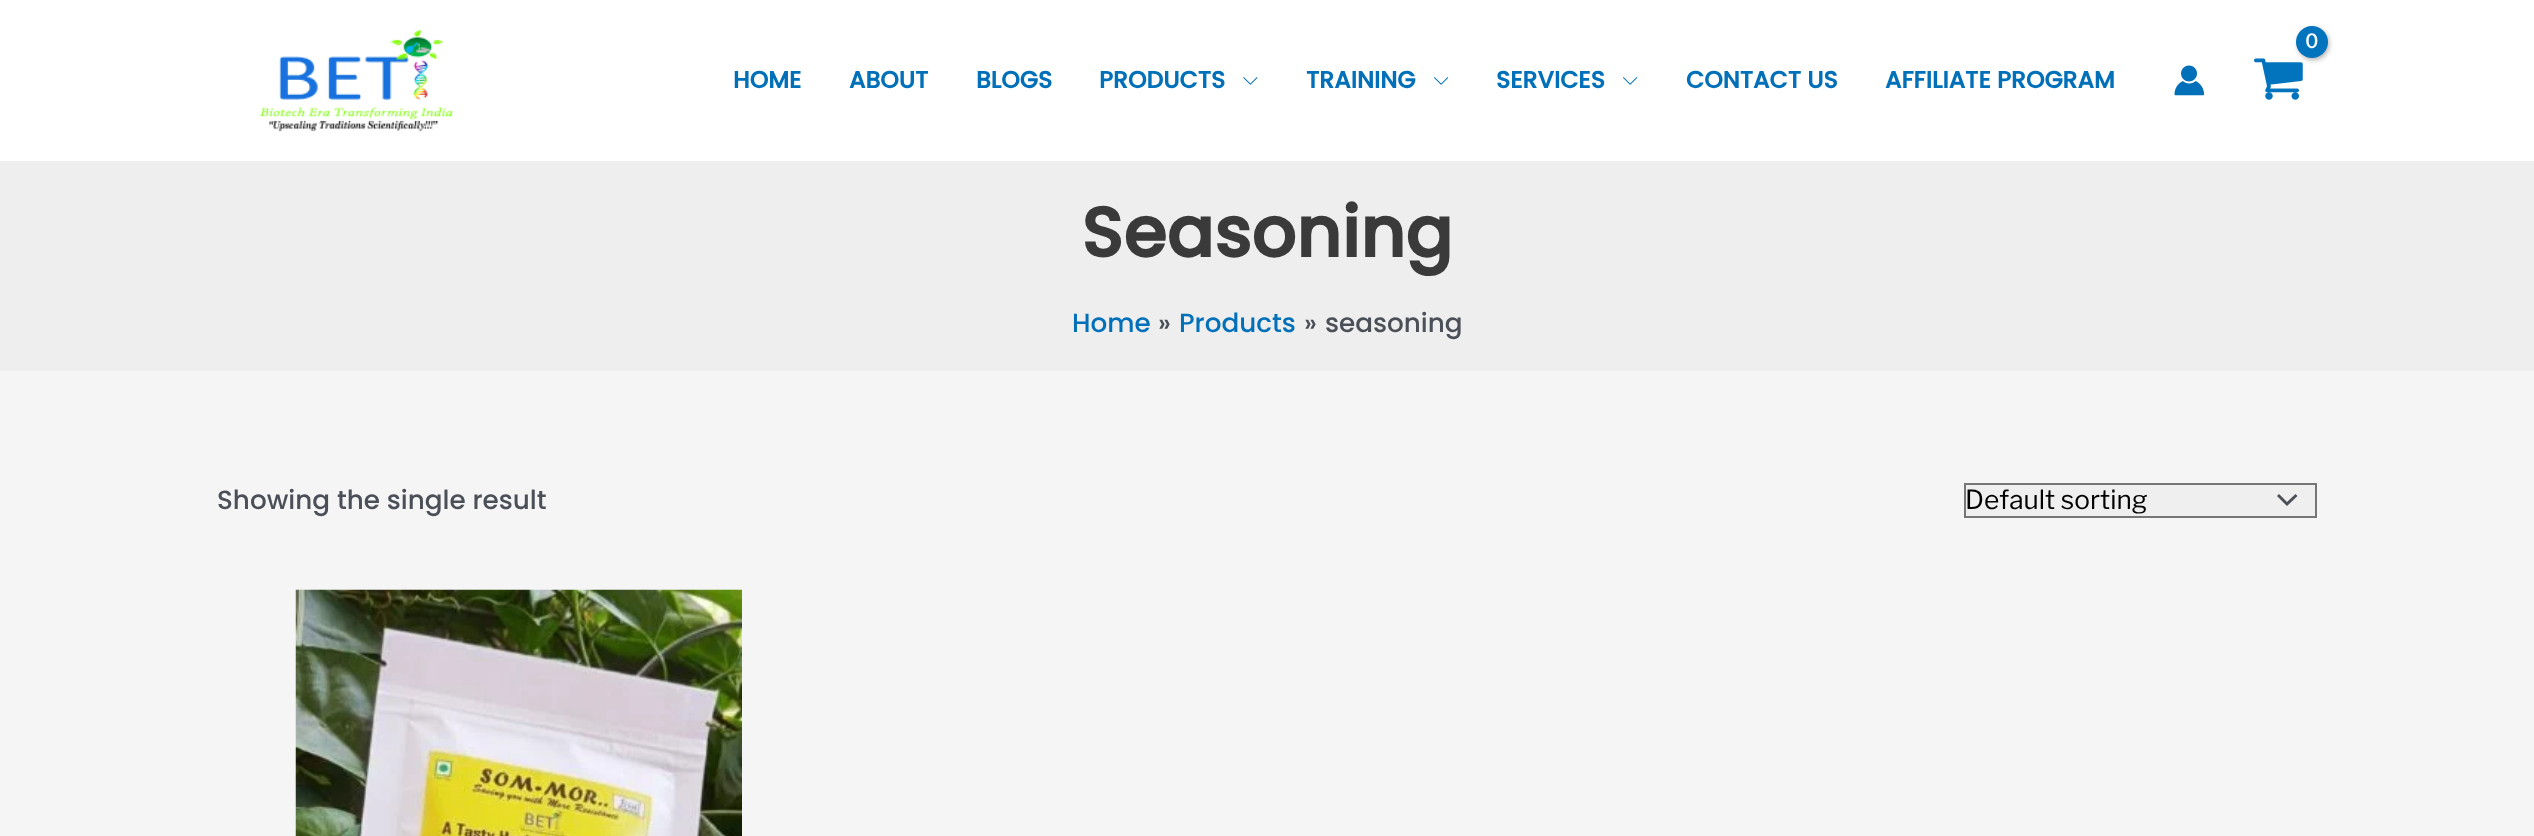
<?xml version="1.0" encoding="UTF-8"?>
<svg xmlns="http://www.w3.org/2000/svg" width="2534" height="836">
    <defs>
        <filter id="blur1" x="-50%" y="-200%" width="200%" height="500%"><feGaussianBlur stdDeviation="2.5"/></filter>
    </defs>
    <rect width="100%" height="100%" fill="#F5F5F5"/>
    <rect x="0" y="0" width="2534" height="161" fill="#FFFFFF"/>
    <image x="259" y="28" width="194" height="104" href="img_01.png"/>
    <image x="2254" y="58" width="49" height="42" href="img_02.png"/>
    <rect x="2298" y="28" width="31" height="32" rx="15.5" fill="#000000" fill-opacity="0.3" filter="url(#blur1)"/>
    <circle cx="2312" cy="42" r="16" fill="#0274BE"/>
    <text x="2305" y="48" font-family="Libre Franklin" font-size="19" font-weight="700" letter-spacing="-1" fill="#FFFFFF">0</text>
    <text x="733" y="88" font-family="Poppins" font-size="23.6" font-weight="700" fill="#0170B9">HOME</text>
    <text x="849" y="88" font-family="Poppins" font-size="23.6" font-weight="700" fill="#0170B9">ABOUT</text>
    <text x="976" y="88" font-family="Poppins" font-size="23.6" font-weight="700" fill="#0170B9">BLOGS</text>
    <text x="1099" y="88" font-family="Poppins" font-size="23.6" font-weight="700" fill="#0170B9">PRODUCTS</text>
    <image x="1243" y="77" width="15" height="8" href="img_03.png"/>
    <text x="1306" y="88" font-family="Poppins" font-size="23.6" font-weight="700" fill="#0170B9">TRAINING</text>
    <image x="1434" y="77" width="15" height="8" href="img_04.png"/>
    <text x="1496" y="88" font-family="Poppins" font-size="23.6" font-weight="700" fill="#0170B9">SERVICES</text>
    <image x="1623" y="77" width="15" height="8" href="img_04.png"/>
    <text x="1686" y="88" font-family="Poppins" font-size="23.6" font-weight="700" fill="#0170B9">CONTACT US</text>
    <text x="1885" y="88" font-family="Poppins" font-size="23.6" font-weight="700" fill="#0170B9">AFFILIATE PROGRAM</text>
    <image x="2174" y="65" width="30" height="31" href="img_05.png"/>
    <rect x="0" y="161" width="2534" height="210" fill="#EEEEEE"/>
    <text x="1081" y="257" font-family="Poppins" font-size="70" font-weight="700" fill="#3A3A3A">Seasoning</text>
    <text x="1072" y="332" font-family="Poppins" font-size="26.25" font-weight="500" fill="#0170B9">Home</text>
    <text x="1158" y="332" font-family="Poppins" font-size="26.25" font-weight="500" fill="#4B4F58">»</text>
    <text x="1179" y="332" font-family="Poppins" font-size="26.25" font-weight="500" fill="#0170B9">Products</text>
    <text x="1304" y="332" font-family="Poppins" font-size="26.25" font-weight="500" fill="#4B4F58">»</text>
    <text x="1325" y="332" font-family="Poppins" font-size="26.25" font-weight="500" fill="#4B4F58">seasoning</text>
    <text x="217" y="509" font-family="Poppins" font-size="26.25" font-weight="500" fill="#4B4F58">Showing the single result</text>
    <rect x="1966" y="485" width="349" height="31" fill="#EFEFEF"/>
    <path d="M 2277 496 L 2287 506 L 2297.5 496 L 2295.5 494 L 2287 502 L 2279 494 Z" fill="#4B4F58"/>
    <rect x="1965" y="484" width="351" height="33" fill="none" stroke="#767676" stroke-width="2"/>
    <text x="1965" y="509" font-family="Libre Franklin" font-size="26.25" font-weight="100" fill="#000000">Default sorting</text>
    <image x="295" y="589" width="447" height="247" href="img_06.png"/>
</svg>
